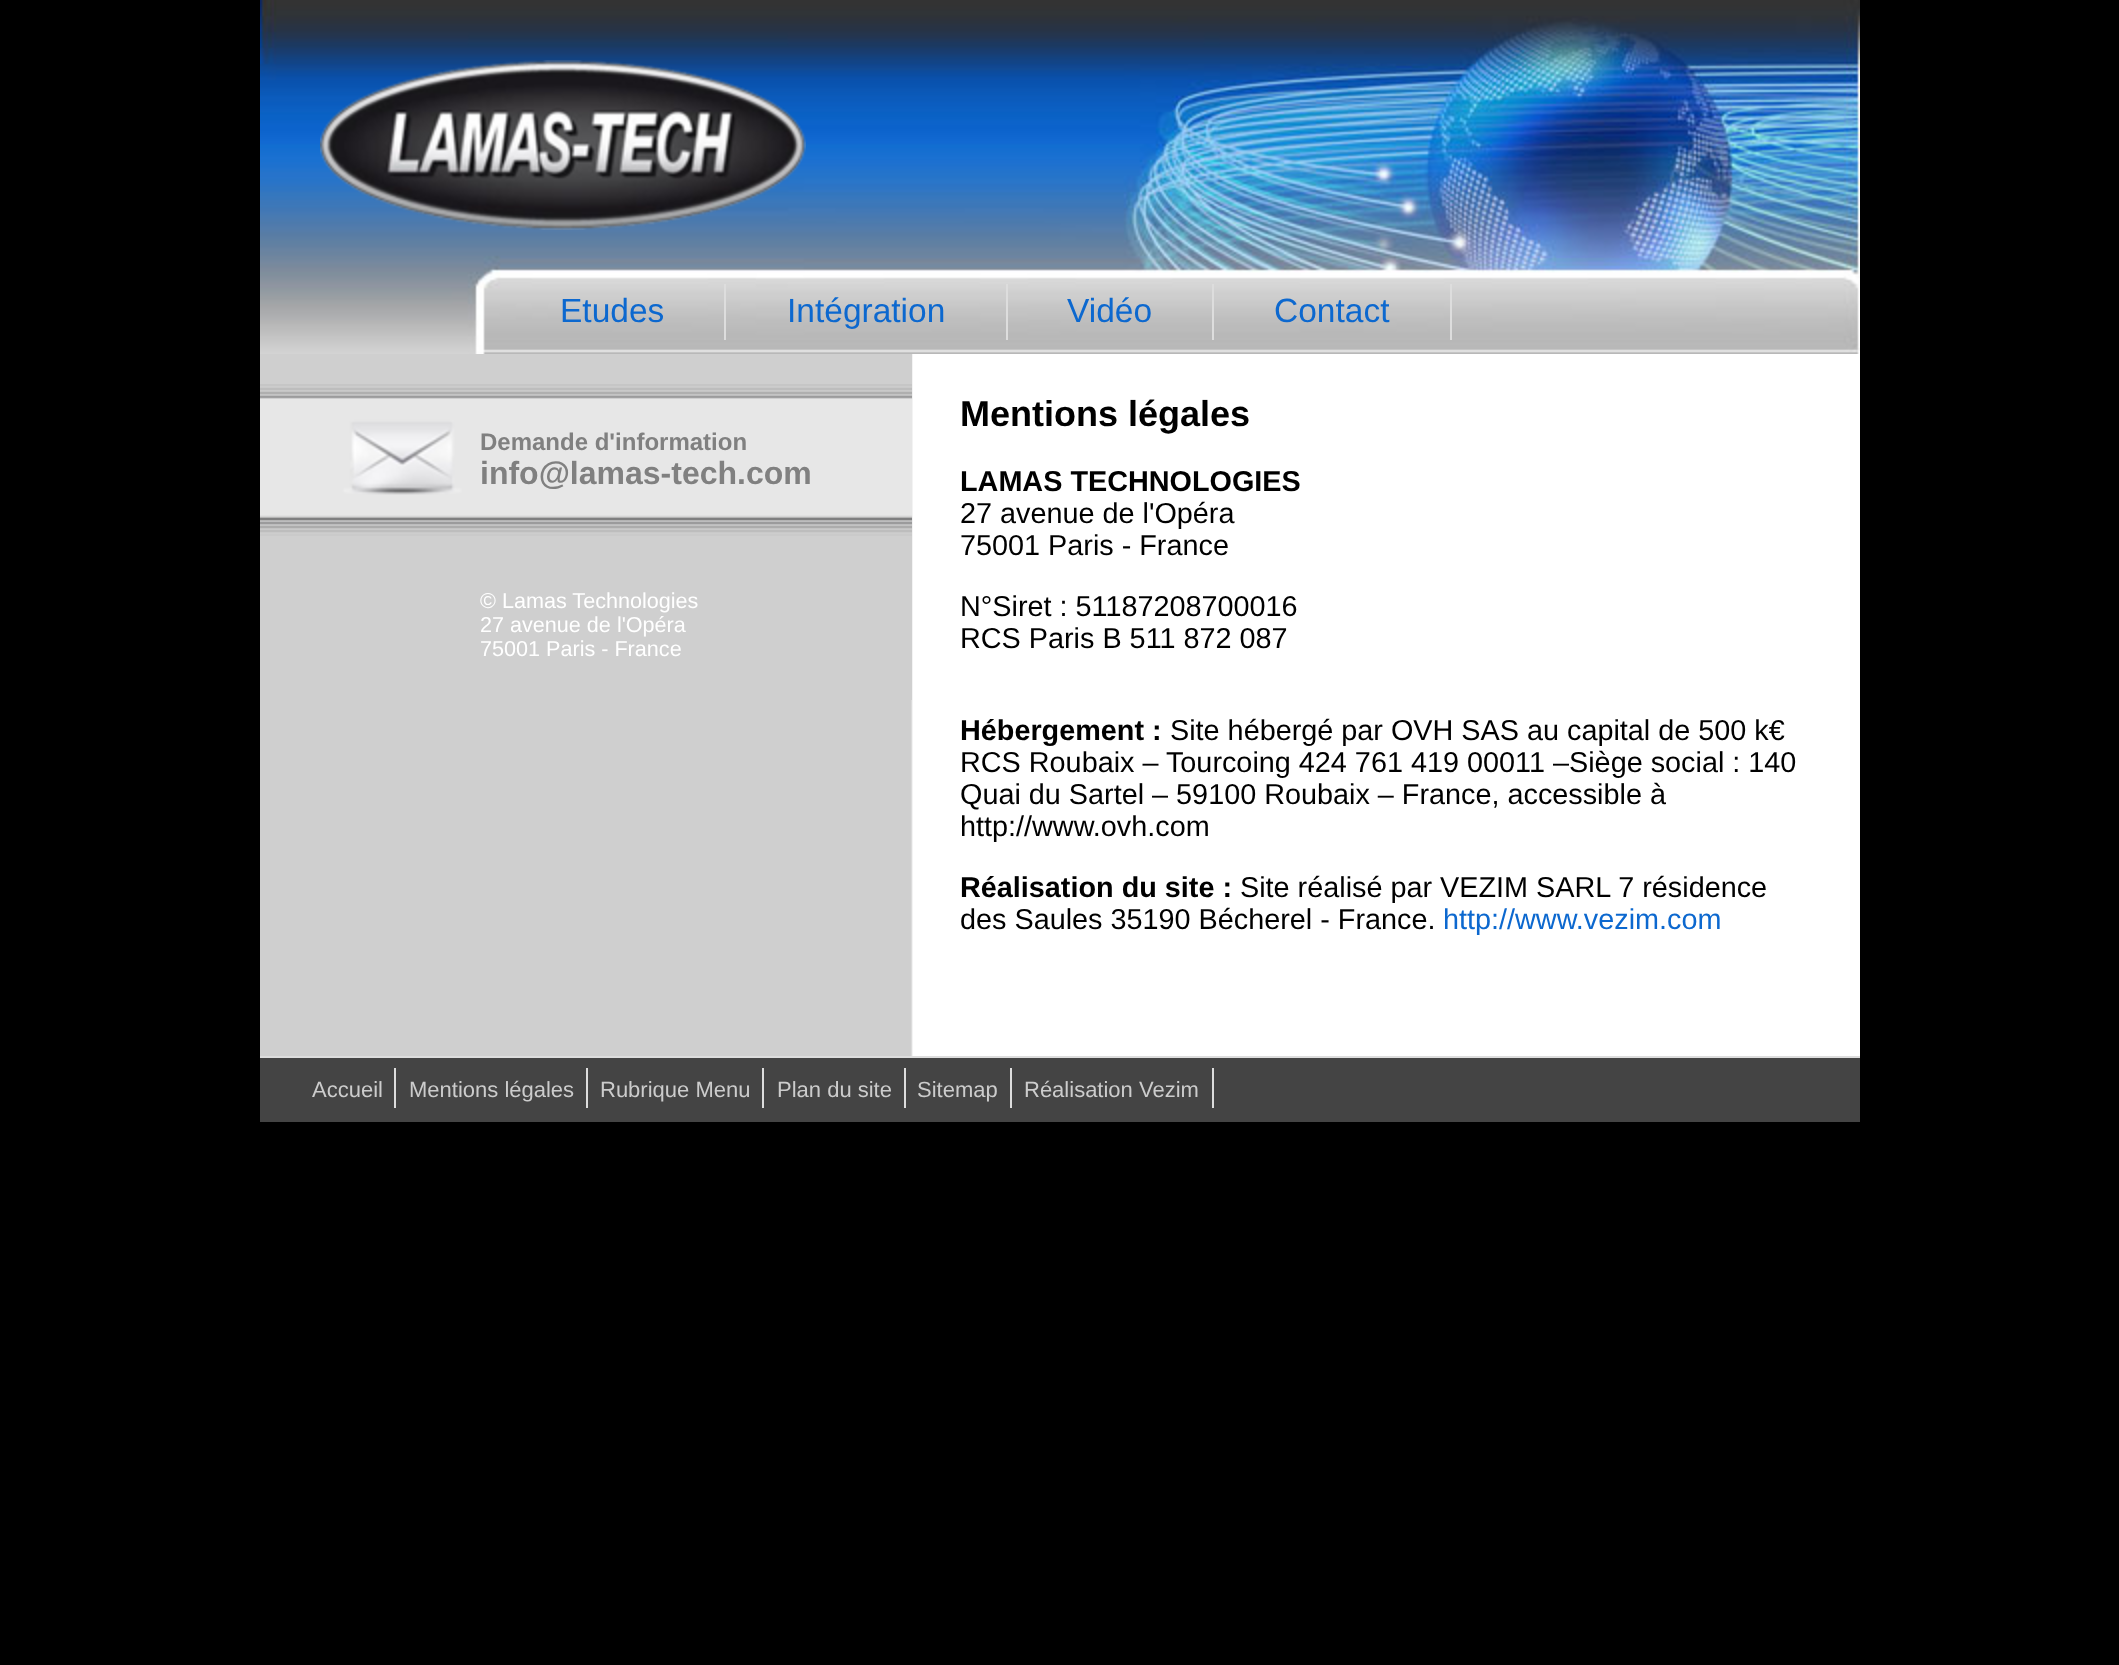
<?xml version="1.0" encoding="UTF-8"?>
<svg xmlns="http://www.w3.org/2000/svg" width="2119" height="1665">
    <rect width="100%" height="100%" fill="#000000"/>
    <rect x="913" y="354" width="947" height="702" fill="#FFFFFF"/>
    <image x="260" y="0" width="1600" height="354" href="img_01.png"/>
    <image x="320" y="60" width="486" height="170" href="img_02.png"/>
    <rect x="724" y="284" width="2" height="56" fill="#DDDDDD"/>
    <text x="560" y="322" font-family="Liberation Sans" font-size="33.5" fill="#0C68CF">Etudes</text>
    <rect x="1006" y="284" width="2" height="56" fill="#DDDDDD"/>
    <text x="787" y="322" font-family="Liberation Sans" font-size="33.5" fill="#0C68CF">Intégration</text>
    <rect x="1212" y="284" width="2" height="56" fill="#DDDDDD"/>
    <text x="1067" y="322" font-family="Liberation Sans" font-size="33.5" fill="#0C68CF">Vidéo</text>
    <rect x="1450" y="284" width="2" height="56" fill="#DDDDDD"/>
    <text x="1274" y="322" font-family="Liberation Sans" font-size="33.5" fill="#0C68CF">Contact</text>
    <image x="260" y="354" width="653" height="702" href="img_03.png"/>
    <rect x="911" y="354" width="1" height="346" fill="#CFCFCF"/>
    <image x="260" y="384" width="652" height="152" href="img_04.png"/>
    <text x="480" y="450" font-family="Liberation Sans" font-size="24" font-weight="700" fill="#808080">Demande d'information</text>
    <text x="480" y="484" font-family="Liberation Sans" font-size="32" font-weight="700" fill="#808080">info@lamas-tech.com</text>
    <text font-family="Liberation Sans" font-size="21.6" fill="#FFFFFF">
        <tspan x="480" y="608">© Lamas Technologies</tspan>
        <tspan x="480" y="632">27 avenue de l'Opéra</tspan>
        <tspan x="480" y="656">75001 Paris - France</tspan>
    </text>
    <text x="960" y="426" font-family="Liberation Sans" font-size="36" font-weight="700" fill="#000000">Mentions légales</text>
    <text x="960" y="491" font-family="Liberation Sans" font-size="28.8" font-weight="700" fill="#000000">LAMAS TECHNOLOGIES</text>
    <text font-family="Liberation Sans" font-size="28.8" fill="#000000">
        <tspan x="960" y="523">27 avenue de l'Opéra</tspan>
        <tspan x="960" y="555">75001 Paris - France</tspan>
    </text>
    <text font-family="Liberation Sans" font-size="28.8" fill="#000000">
        <tspan x="960" y="616">N°Siret : 51187208700016</tspan>
        <tspan x="960" y="648">RCS Paris B 511 872 087</tspan>
    </text>
    <text x="960" y="740" font-family="Liberation Sans" font-size="28.8" font-weight="700" fill="#000000">Hébergement :</text>
    <text x="1170" y="740" font-family="Liberation Sans" font-size="28.8" fill="#000000">Site hébergé par OVH SAS au capital de 500 k€</text>
    <text x="960" y="772" font-family="Liberation Sans" font-size="28.8" fill="#000000">RCS Roubaix – Tourcoing 424 761 419 00011</text>
    <text x="1553" y="772" font-family="Liberation Sans" font-size="28.8" fill="#000000">–Siège social : 140</text>
    <text font-family="Liberation Sans" font-size="28.8" fill="#000000">
        <tspan x="960" y="804">Quai du Sartel – 59100 Roubaix – France, accessible à</tspan>
        <tspan x="960" y="836">http://www.ovh.com</tspan>
    </text>
    <text x="960" y="897" font-family="Liberation Sans" font-size="28.8" font-weight="700" fill="#000000">Réalisation du site :</text>
    <text x="1240" y="897" font-family="Liberation Sans" font-size="28.8" fill="#000000">Site réalisé par VEZIM SARL 7 résidence</text>
    <text x="960" y="929" font-family="Liberation Sans" font-size="28.8" fill="#000000">des Saules 35190 Bécherel - France.</text>
    <text x="1443" y="929" font-family="Liberation Sans" font-size="28.8" fill="#0C68CF">http://www.vezim.com</text>
    <rect x="260" y="1058" width="1600" height="64" fill="#444444"/>
    <rect x="260" y="1056" width="1600" height="2" fill="#DDDDDD"/>
    <rect x="394" y="1068" width="2" height="40" fill="#DDDDDD"/>
    <text x="312" y="1097" font-family="Liberation Sans" font-size="22" fill="#CCCCCC">Accueil</text>
    <rect x="586" y="1068" width="2" height="40" fill="#DDDDDD"/>
    <text x="409" y="1097" font-family="Liberation Sans" font-size="22" fill="#CCCCCC">Mentions légales</text>
    <rect x="762" y="1068" width="2" height="40" fill="#DDDDDD"/>
    <text x="600" y="1097" font-family="Liberation Sans" font-size="22" fill="#CCCCCC">Rubrique Menu</text>
    <rect x="904" y="1068" width="2" height="40" fill="#DDDDDD"/>
    <text x="777" y="1097" font-family="Liberation Sans" font-size="22" fill="#CCCCCC">Plan du site</text>
    <rect x="1010" y="1068" width="2" height="40" fill="#DDDDDD"/>
    <text x="917" y="1097" font-family="Liberation Sans" font-size="22" fill="#CCCCCC">Sitemap</text>
    <rect x="1212" y="1068" width="2" height="40" fill="#DDDDDD"/>
    <text x="1024" y="1097" font-family="Liberation Sans" font-size="22" fill="#CCCCCC">Réalisation Vezim</text>
</svg>
